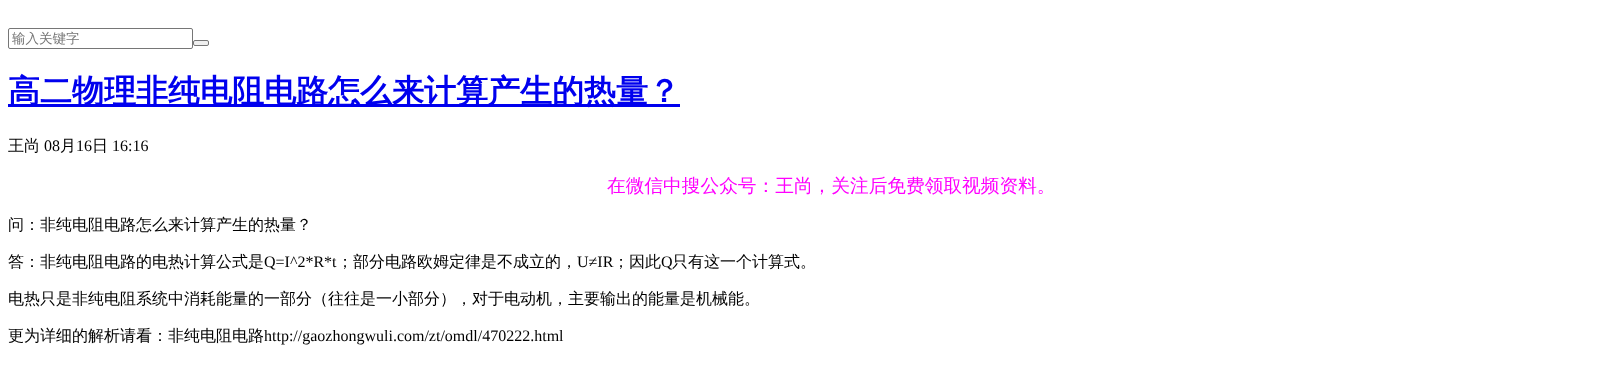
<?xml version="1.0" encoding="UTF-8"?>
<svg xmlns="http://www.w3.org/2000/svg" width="1609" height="368">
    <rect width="100%" height="100%" fill="#FFFFFF"/>
    <rect x="8.5" y="28.5" width="184" height="20" rx="1.5" fill="none" stroke="#767676"/>
    <text x="12" y="43" font-family="WenQuanYi Zen Hei" font-size="13.5" font-weight="500" fill="#757575">输入关键字</text>
    <rect x="193.5" y="40.5" width="15" height="5" rx="1.5" fill="#EFEFEF" stroke="#767676"/>
    <rect x="8" y="104" width="672" height="3" fill="#0000EE"/>
    <text x="8" y="102" font-family="WenQuanYi Zen Hei" font-size="32" font-weight="700" fill="#0000EE">高二物理非纯电阻电路怎么来计算产生的热量？</text>
    <text x="8" y="151" font-family="WenQuanYi Zen Hei" font-size="16" font-weight="500" fill="#000000">王尚</text>
    <text x="44" y="151" font-family="Liberation Serif" font-size="16" fill="#000000">08</text>
    <text x="60" y="151" font-family="WenQuanYi Zen Hei" font-size="16" font-weight="500" fill="#000000">月</text>
    <text x="76" y="151" font-family="Liberation Serif" font-size="16" fill="#000000">16</text>
    <text x="92" y="151" font-family="WenQuanYi Zen Hei" font-size="16" font-weight="500" fill="#000000">日</text>
    <text x="112" y="151" font-family="Liberation Serif" font-size="16" fill="#000000">16:16</text>
    <text x="607" y="192" font-family="WenQuanYi Zen Hei" font-size="18.7" font-weight="500" fill="#FF00FF">在微信中搜公众号：王尚，关注后免费领取视频资料。</text>
    <text x="8" y="230" font-family="WenQuanYi Zen Hei" font-size="16" font-weight="500" fill="#000000">问：非纯电阻电路怎么来计算产生的热量？</text>
    <text x="8" y="267" font-family="WenQuanYi Zen Hei" font-size="16" font-weight="500" fill="#000000">答：非纯电阻电路的电热计算公式是</text>
    <text x="264" y="267" font-family="Liberation Serif" font-size="16" fill="#000000">Q=I^2*R*t</text>
    <text x="337" y="267" font-family="WenQuanYi Zen Hei" font-size="16" font-weight="500" fill="#000000">；部分电路欧姆定律是不成立的，</text>
    <text x="577" y="267" font-family="Liberation Serif" font-size="16" fill="#000000">U≠IR</text>
    <text x="613" y="267" font-family="WenQuanYi Zen Hei" font-size="16" font-weight="500" fill="#000000">；因此</text>
    <text x="661" y="267" font-family="Liberation Serif" font-size="16" fill="#000000">Q</text>
    <text x="672" y="267" font-family="WenQuanYi Zen Hei" font-size="16" font-weight="500" fill="#000000">只有这一个计算式。</text>
    <text x="8" y="304" font-family="WenQuanYi Zen Hei" font-size="16" font-weight="500" fill="#000000">电热只是非纯电阻系统中消耗能量的一部分（往往是一小部分），对于电动机，主要输出的能量是机械能。</text>
    <text x="8" y="341" font-family="WenQuanYi Zen Hei" font-size="16" font-weight="500" fill="#000000">更为详细的解析请看：非纯电阻电路</text>
    <text x="264" y="341" font-family="Liberation Serif" font-size="16" fill="#000000">http://gaozhongwuli.com/zt/omdl/470222.html</text>
</svg>
